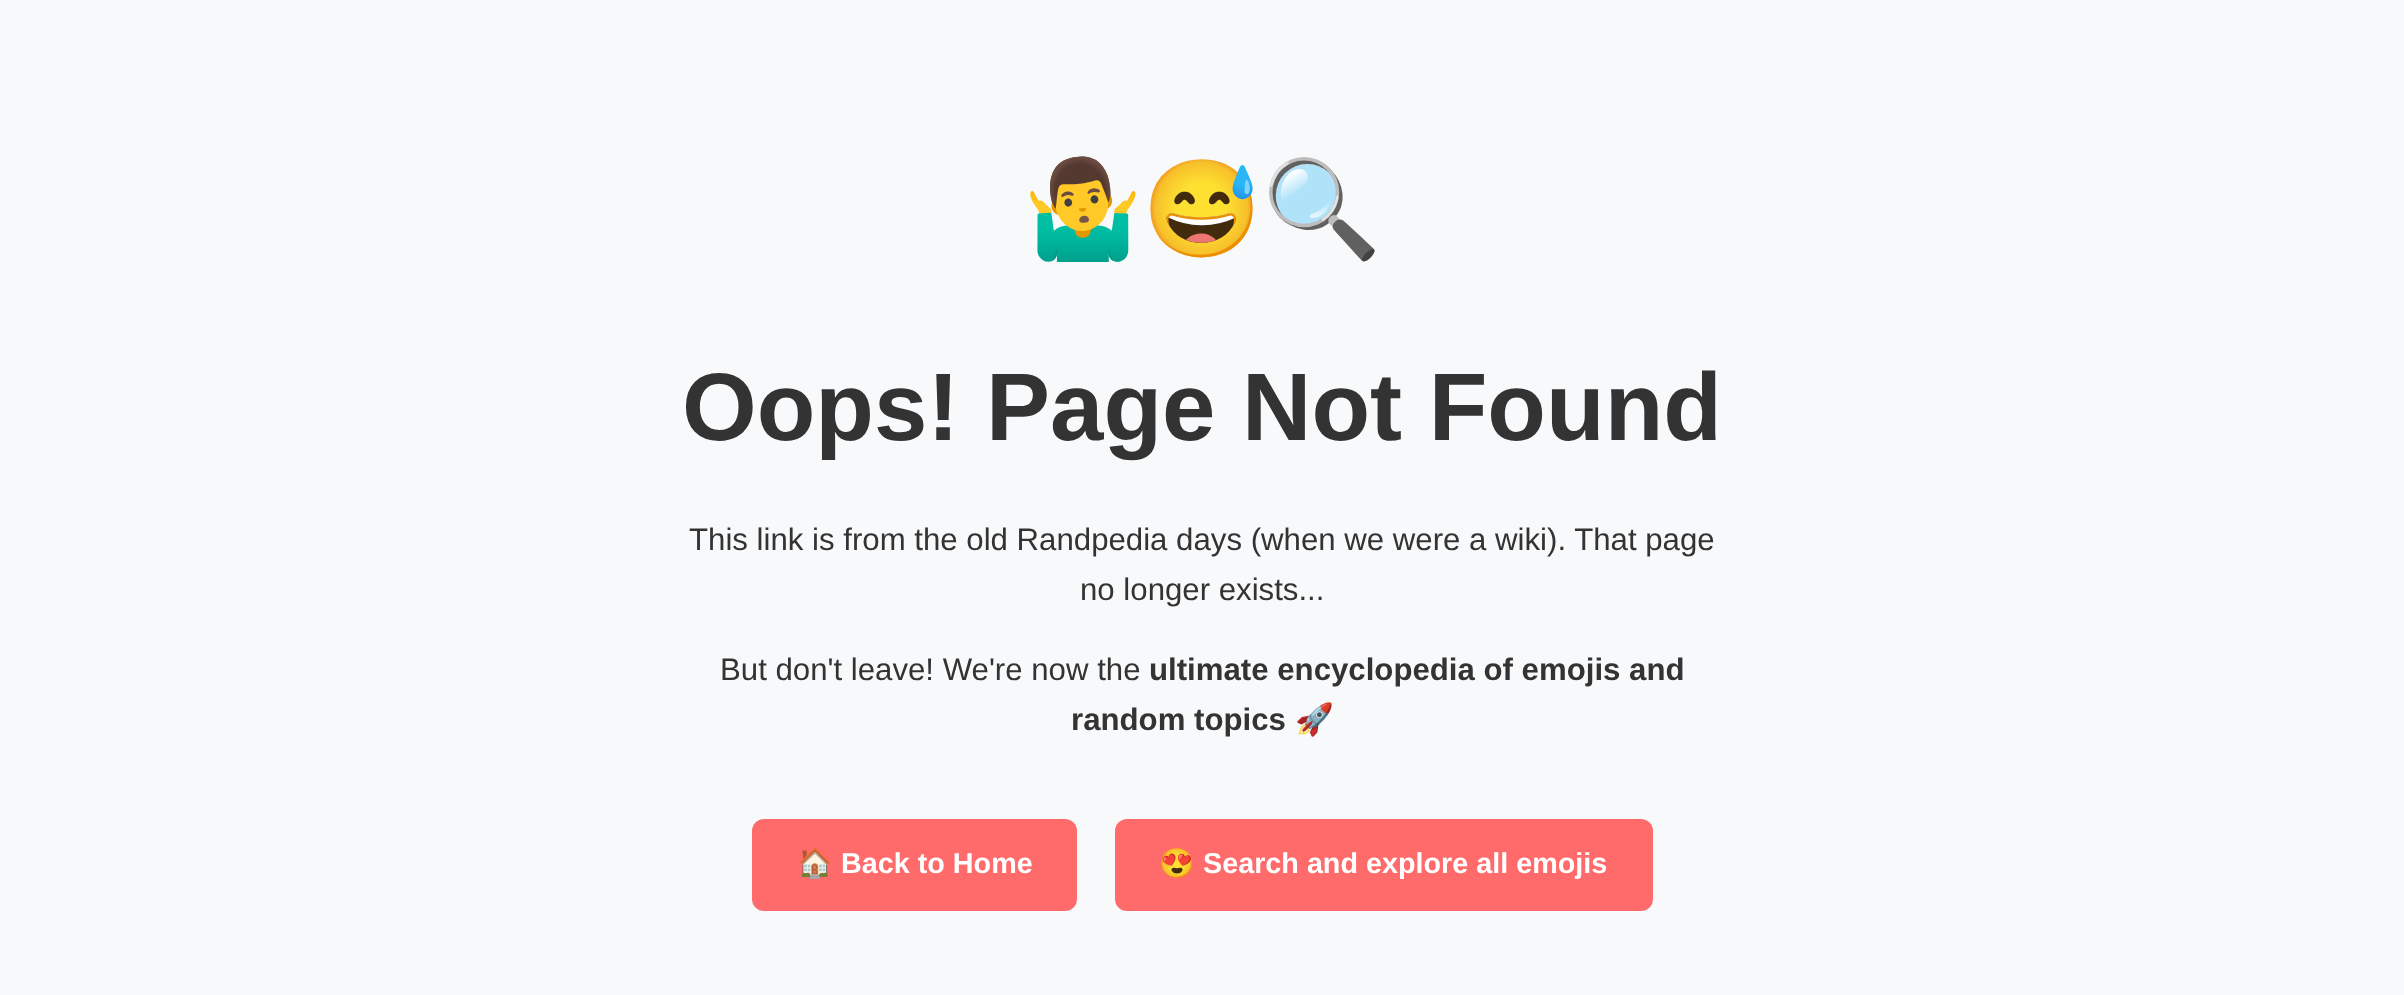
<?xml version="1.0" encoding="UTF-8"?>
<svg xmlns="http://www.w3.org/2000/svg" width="2404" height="995">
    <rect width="100%" height="100%" fill="#F8F9FA"/>
    <text x="1023" y="242" font-family="Noto Color Emoji" font-size="96" fill="#333333">🤷‍♂️😅🔍</text>
    <text x="682" y="440" font-family="Liberation Sans" font-size="96" font-weight="700" fill="#333333">Oops! Page Not Found</text>
    <text x="689" y="550" font-family="Liberation Sans" font-size="31.2" fill="#333333">This link is from the old Randpedia days (when we were a wiki). That page</text>
    <text x="1080" y="600" font-family="Liberation Sans" font-size="31.2" fill="#333333">no longer exists...</text>
    <text x="720" y="680" font-family="Liberation Sans" font-size="31.2" fill="#333333">But don't leave! We're now the</text>
    <text x="1149" y="680" font-family="Liberation Sans" font-size="31.2" font-weight="700" fill="#333333">ultimate encyclopedia of emojis and</text>
    <text x="1071" y="730" font-family="Liberation Sans" font-size="31.2" font-weight="700" fill="#333333">random topics</text>
    <text x="1295" y="730" font-family="Noto Color Emoji" font-size="31.2" fill="#333333">🚀</text>
    <rect x="752" y="819" width="325" height="92" rx="12" fill="#FF6B6B"/>
    <text x="797" y="873" font-family="Noto Color Emoji" font-size="28.75" font-weight="700" fill="#FFFFFF">🏠</text>
    <text x="841" y="873" font-family="Liberation Sans" font-size="28.75" font-weight="700" fill="#FFFFFF">Back to Home</text>
    <rect x="1115" y="819" width="538" height="92" rx="12" fill="#FF6B6B"/>
    <text x="1159" y="873" font-family="Noto Color Emoji" font-size="28.75" font-weight="700" fill="#FFFFFF">😍</text>
    <text x="1203" y="873" font-family="Liberation Sans" font-size="28.75" font-weight="700" fill="#FFFFFF">Search and explore all emojis</text>
</svg>
